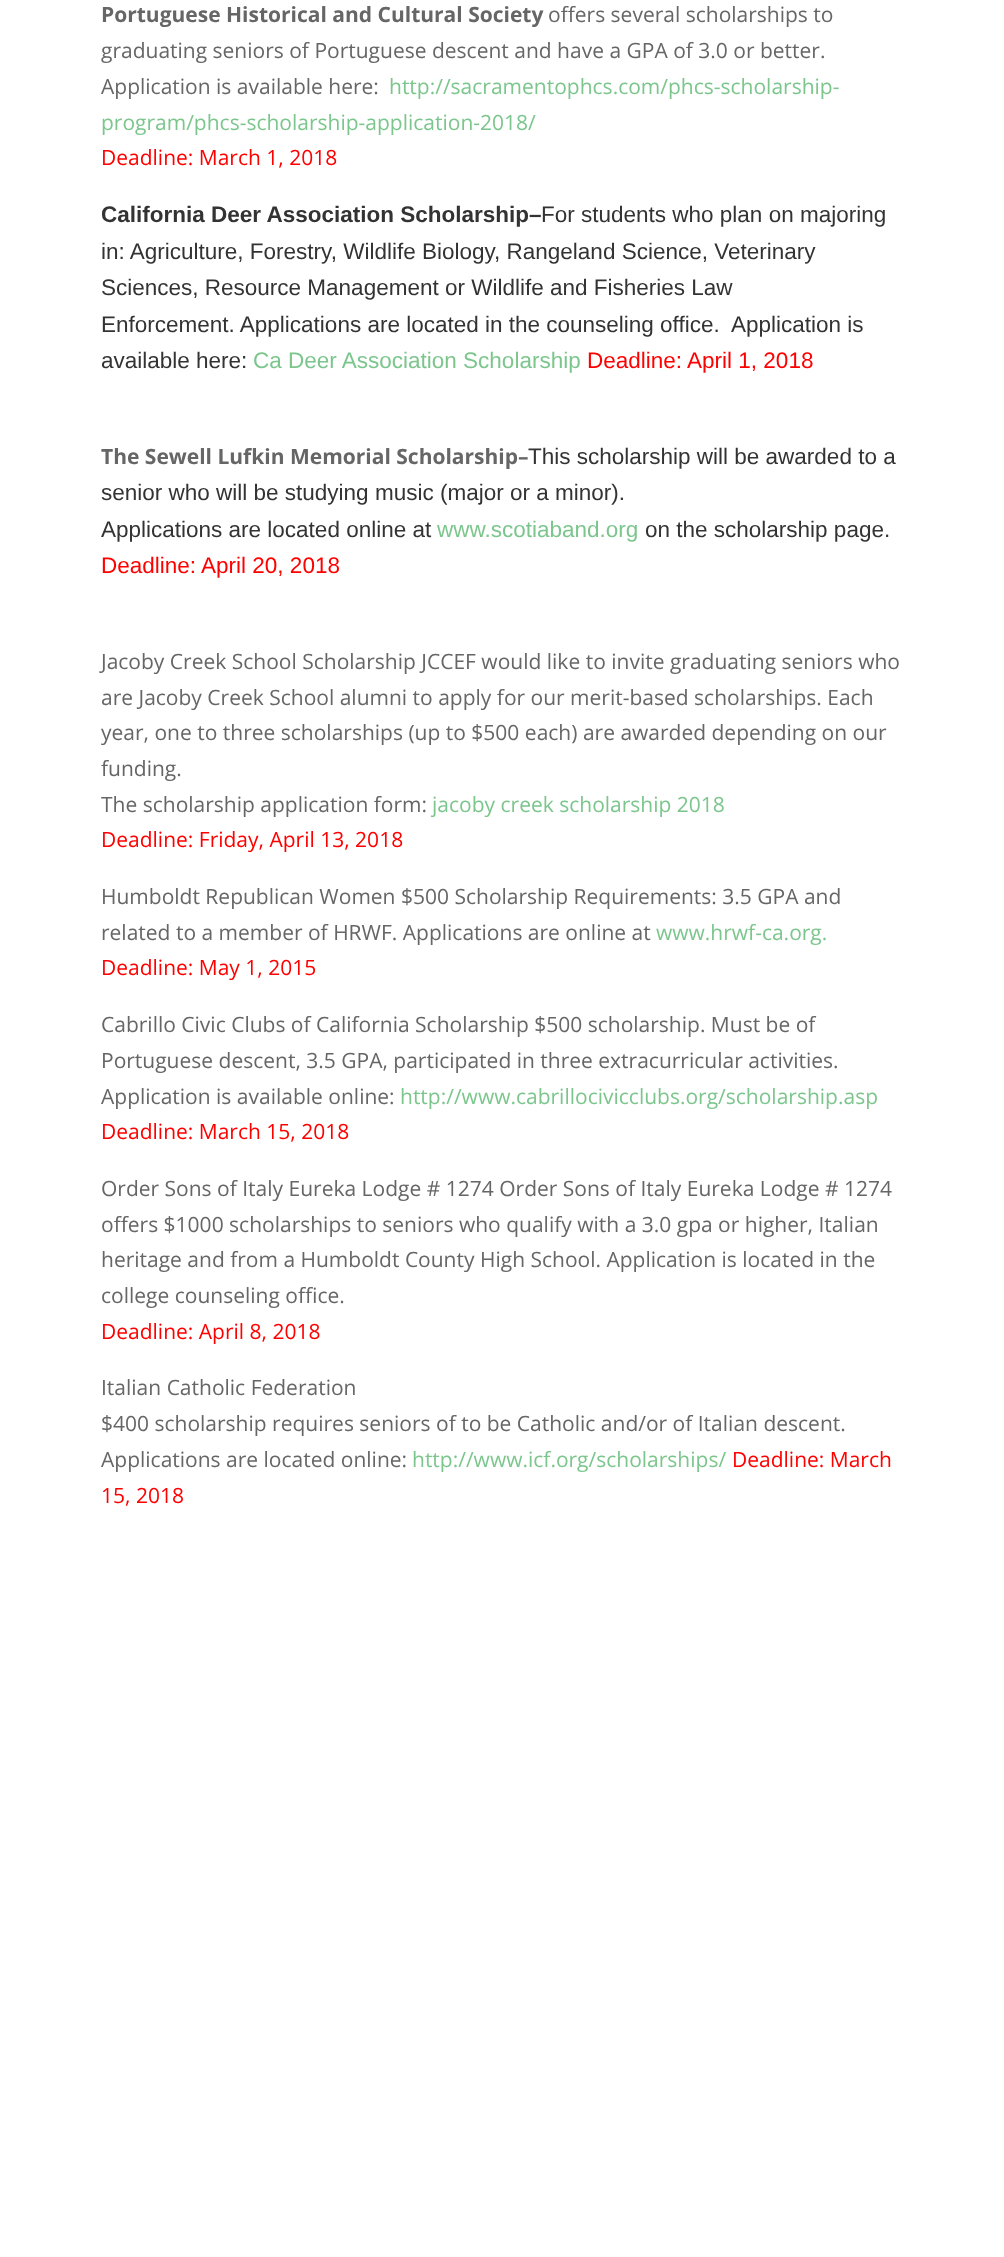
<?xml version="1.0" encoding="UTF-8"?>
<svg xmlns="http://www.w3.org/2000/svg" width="1004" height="2257">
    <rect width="100%" height="100%" fill="#FFFFFF"/>
    <text x="101" y="22" font-family="Open Sans" font-size="21" font-weight="700" fill="#666666">Portuguese Historical and Cultural Society</text>
    <text x="548" y="22" font-family="Open Sans" font-size="21" fill="#666666">offers several scholarships to</text>
    <text font-family="Open Sans" font-size="21" fill="#666666">
        <tspan x="101" y="58">graduating seniors of Portuguese descent and have a GPA of 3.0 or better.</tspan>
        <tspan x="101" y="94">Application is available here:</tspan>
    </text>
    <text x="389" y="94" font-family="Open Sans" font-size="21" fill="#7CC68D">http://sacramentophcs.com/phcs-scholarship-</text>
    <text x="101" y="130" font-family="Open Sans" font-size="21" fill="#7CC68D">program/phcs-scholarship-application-2018/</text>
    <text x="101" y="165" font-family="Open Sans" font-size="21" fill="#FF0000">Deadline: March 1, 2018</text>
    <text x="101" y="222" font-family="Liberation Sans" font-size="22.5" font-weight="700" fill="#333333">California Deer Association Scholarship–</text>
    <text x="541" y="222" font-family="Liberation Sans" font-size="22.5" fill="#333333">For students who plan on majoring</text>
    <text font-family="Liberation Sans" font-size="22.5" fill="#333333" xml:space="preserve"><tspan x="101" y="259">in: Agriculture, Forestry, Wildlife Biology, Rangeland Science, Veterinary</tspan><tspan x="101" y="295">Sciences, Resource Management or Wildlife and Fisheries Law</tspan><tspan x="101" y="332">Enforcement. Applications are located in the counseling office.  Application is</tspan><tspan x="101" y="368">available here:</tspan></text>
    <text x="253" y="368" font-family="Liberation Sans" font-size="22.5" fill="#7CC68D">Ca Deer Association Scholarship</text>
    <text x="587" y="368" font-family="Liberation Sans" font-size="22.5" fill="#FF0000">Deadline: April 1, 2018</text>
    <text x="101" y="464" font-family="Open Sans" font-size="21" font-weight="700" fill="#666666">The Sewell Lufkin Memorial Scholarship–</text>
    <text x="528" y="464" font-family="Liberation Sans" font-size="22.5" fill="#333333">This scholarship will be awarded to a</text>
    <text font-family="Liberation Sans" font-size="22.5" fill="#333333">
        <tspan x="101" y="500">senior who will be studying music (major or a minor).</tspan>
        <tspan x="101" y="537">Applications are located online at</tspan>
    </text>
    <text x="437" y="537" font-family="Liberation Sans" font-size="22.5" fill="#7CC68D">www.scotiaband.org</text>
    <text x="645" y="537" font-family="Liberation Sans" font-size="22.5" fill="#333333">on the scholarship page.</text>
    <text x="101" y="573" font-family="Liberation Sans" font-size="22.5" fill="#FF0000">Deadline: April 20, 2018</text>
    <text font-family="Open Sans" font-size="21" fill="#666666">
        <tspan x="101" y="669">Jacoby Creek School Scholarship JCCEF would like to invite graduating seniors who</tspan>
        <tspan x="101" y="705">are Jacoby Creek School alumni to apply for our merit-based scholarships. Each</tspan>
        <tspan x="101" y="740">year, one to three scholarships (up to $500 each) are awarded depending on our</tspan>
        <tspan x="101" y="776">funding.</tspan>
        <tspan x="101" y="812">The scholarship application form:</tspan>
    </text>
    <text x="432" y="812" font-family="Open Sans" font-size="21" fill="#7CC68D">jacoby creek scholarship 2018</text>
    <text x="101" y="847" font-family="Open Sans" font-size="21" fill="#FF0000">Deadline: Friday, April 13, 2018</text>
    <text font-family="Open Sans" font-size="21" fill="#666666">
        <tspan x="101" y="904">Humboldt Republican Women $500 Scholarship Requirements: 3.5 GPA and</tspan>
        <tspan x="101" y="940">related to a member of HRWF. Applications are online at</tspan>
    </text>
    <text x="656" y="940" font-family="Open Sans" font-size="21" fill="#7CC68D">www.hrwf-ca.org.</text>
    <text x="101" y="975" font-family="Open Sans" font-size="21" fill="#FF0000">Deadline: May 1, 2015</text>
    <text font-family="Open Sans" font-size="21" fill="#666666">
        <tspan x="101" y="1032">Cabrillo Civic Clubs of California Scholarship $500 scholarship. Must be of</tspan>
        <tspan x="101" y="1068">Portuguese descent, 3.5 GPA, participated in three extracurricular activities.</tspan>
        <tspan x="101" y="1104">Application is available online:</tspan>
    </text>
    <text x="400" y="1104" font-family="Open Sans" font-size="21" fill="#7CC68D">http://www.cabrillocivicclubs.org/scholarship.asp</text>
    <text x="101" y="1139" font-family="Open Sans" font-size="21" fill="#FF0000">Deadline: March 15, 2018</text>
    <text font-family="Open Sans" font-size="21" fill="#666666">
        <tspan x="101" y="1196">Order Sons of Italy Eureka Lodge # 1274 Order Sons of Italy Eureka Lodge # 1274</tspan>
        <tspan x="101" y="1232">offers $1000 scholarships to seniors who qualify with a 3.0 gpa or higher, Italian</tspan>
        <tspan x="101" y="1267">heritage and from a Humboldt County High School. Application is located in the</tspan>
        <tspan x="101" y="1303">college counseling office.</tspan>
    </text>
    <text x="101" y="1339" font-family="Open Sans" font-size="21" fill="#FF0000">Deadline: April 8, 2018</text>
    <text font-family="Open Sans" font-size="21" fill="#666666">
        <tspan x="101" y="1395">Italian Catholic Federation</tspan>
        <tspan x="101" y="1431">$400 scholarship requires seniors of to be Catholic and/or of Italian descent.</tspan>
        <tspan x="101" y="1467">Applications are located online:</tspan>
    </text>
    <text x="412" y="1467" font-family="Open Sans" font-size="21" fill="#7CC68D">http://www.icf.org/scholarships/</text>
    <text x="732" y="1467" font-family="Open Sans" font-size="21" fill="#FF0000">Deadline: March</text>
    <text x="101" y="1503" font-family="Open Sans" font-size="21" fill="#FF0000">15, 2018</text>
</svg>
